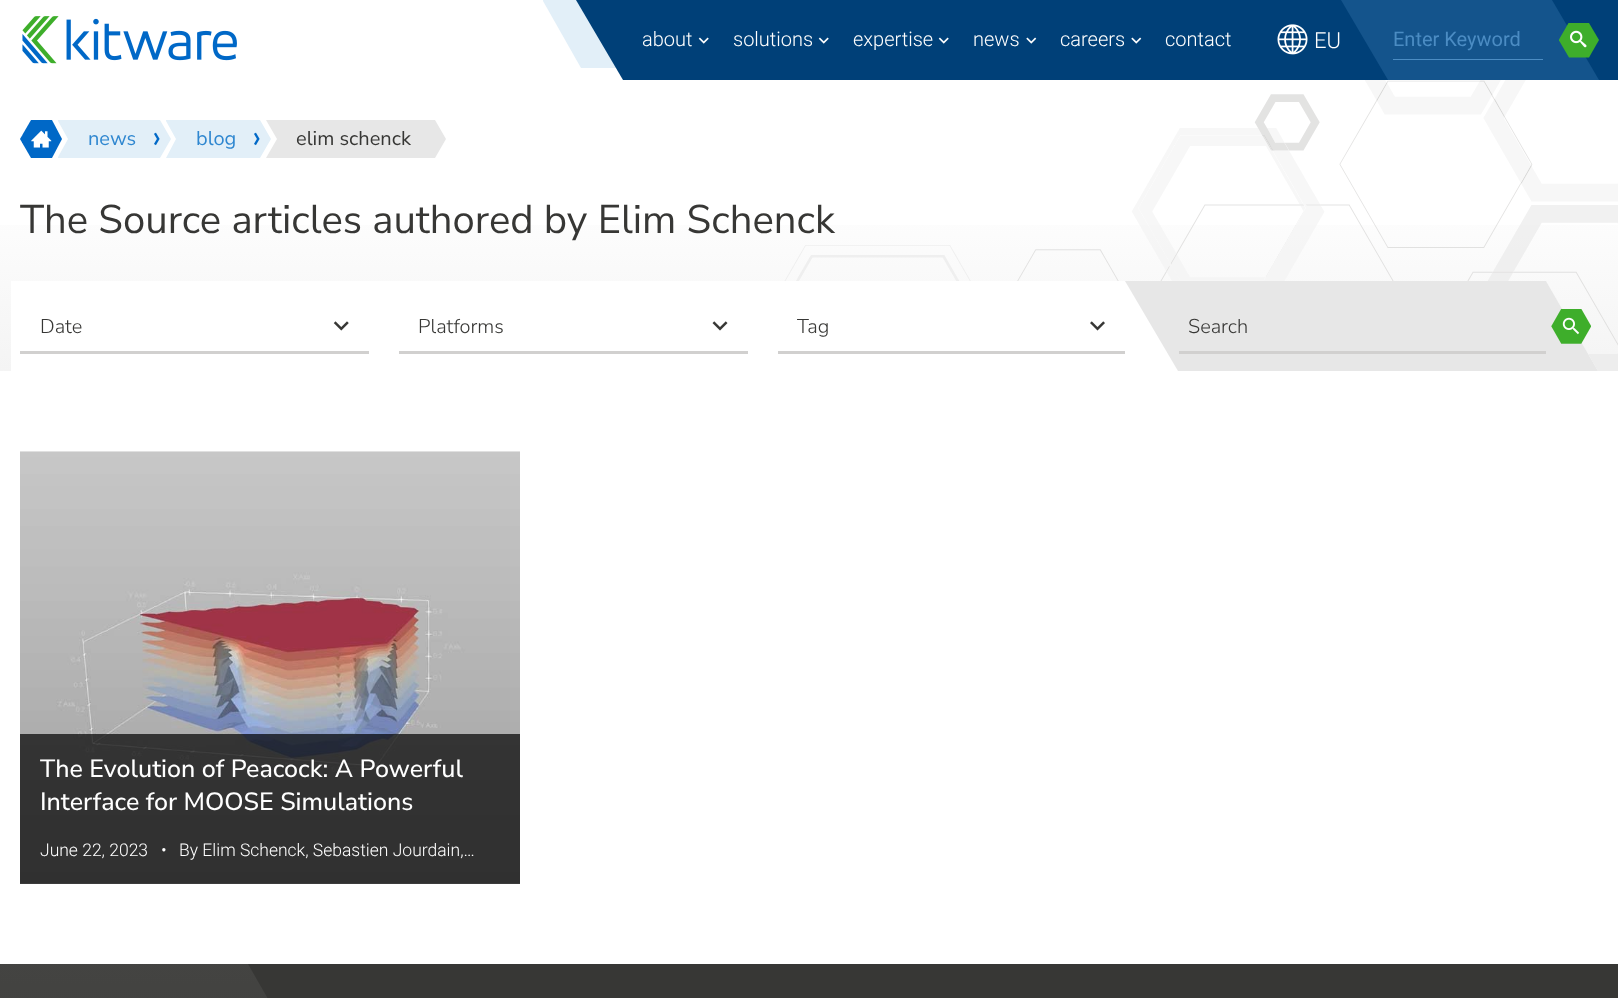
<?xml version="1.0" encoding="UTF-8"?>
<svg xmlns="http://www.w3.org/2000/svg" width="1618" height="998">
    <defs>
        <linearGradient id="g1" gradientUnits="userSpaceOnUse" x1="809" y1="141" x2="809" y2="371"><stop offset="0.18" stop-color="#FFFFFF"/><stop offset="1" stop-color="#F4F4F4"/></linearGradient>
        <clipPath id="clip1"><rect x="0" y="964" width="351" height="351"/></clipPath>
        <linearGradient id="g2" gradientUnits="userSpaceOnUse" x1="81" y1="923" x2="81" y2="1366"><stop offset="0" stop-color="#454543"/><stop offset="1" stop-color="#373735"/></linearGradient>
    </defs>
    <rect width="100%" height="100%" fill="#FFFFFF"/>
    <image x="22" y="16" width="215" height="48" href="img_01.png"/>
    <path d="M 543 0 V 1 L 581 68 H 659 L 698 0 Z" fill="#E2EFF8"/>
    <rect x="623" y="0" width="995" height="80" fill="#004078"/>
    <path d="M 576 0 L 623 80 V 0 Z" fill="#004078"/>
    <text x="642" y="46" font-family="Roboto" font-size="20" font-weight="300" fill="#FFFFFF">about</text>
    <image x="698" y="37" width="11" height="7" href="img_02.png"/>
    <text x="733" y="46" font-family="Roboto" font-size="20" font-weight="300" fill="#FFFFFF">solutions</text>
    <image x="818" y="37" width="11" height="7" href="img_02.png"/>
    <text x="853" y="46" font-family="Roboto" font-size="20" font-weight="300" fill="#FFFFFF">expertise</text>
    <image x="938" y="37" width="11" height="7" href="img_02.png"/>
    <text x="973" y="46" font-family="Roboto" font-size="20" font-weight="300" fill="#FFFFFF">news</text>
    <image x="1026" y="37" width="11" height="7" href="img_03.png"/>
    <text x="1060" y="46" font-family="Roboto" font-size="20" font-weight="300" fill="#FFFFFF">careers</text>
    <image x="1131" y="37" width="11" height="7" href="img_03.png"/>
    <text x="1165" y="46" font-family="Roboto" font-size="20" font-weight="300" fill="#FFFFFF">contact</text>
    <image x="1277" y="24" width="31" height="31" href="img_04.png"/>
    <text x="1314" y="48" font-family="Roboto" font-size="22" font-weight="300" fill="#FFFFFF">EU</text>
    <path d="M 1341 0 L 1388 80 H 1599 L 1552 0 Z" fill="#14548C"/>
    <rect x="1393" y="59" width="150" height="1" fill="#4B8CC3"/>
    <text x="1393" y="46" font-family="Roboto" font-size="20" fill="#4B8CC3">Enter Keyword</text>
    <path d="M 1559 39.5 L 1568.5 23 H 1589 L 1599 40 L 1589 57.5 H 1569 L 1559 40.5 Z" fill="#3EAE2B"/>
    <image x="1570" y="30" width="17" height="18" href="img_05.png"/>
    <rect x="0" y="225" width="1618" height="146" fill="url(#g1)"/>
    <image x="784" y="80" width="834" height="291" href="img_06.png"/>
    <path d="M 31 120 L 20 139 L 31 158 H 52 L 62 139 L 52 120 Z" fill="#0068C7"/>
    <image x="31" y="130" width="21" height="18" href="img_07.png"/>
    <path d="M 58 120 H 160 L 171 139 L 160 158 H 58 V 157 L 68 139 L 58 121 Z" fill="#E2EFF8"/>
    <text x="88" y="145" font-family="Nunito Sans" font-size="20" fill="#2F87D0">news</text>
    <image x="154" y="132" width="6" height="14" href="img_08.png"/>
    <path d="M 166 120 H 260 L 271 139 L 260 158 H 166 L 176 139 L 166 121 Z" fill="#E2EFF8"/>
    <text x="196" y="145" font-family="Nunito Sans" font-size="20" fill="#2F87D0">blog</text>
    <image x="254" y="132" width="6" height="14" href="img_08.png"/>
    <path d="M 266 120 H 435 L 446 139 L 435 158 H 266 L 277 139 Z" fill="#E7E7E7"/>
    <text x="296" y="145" font-family="Nunito Sans" font-size="20" fill="#373735">elim schenck</text>
    <text x="20" y="233" font-family="Nunito Sans" font-size="40" fill="#373735">The Source articles authored by Elim Schenck</text>
    <rect x="11" y="281" width="9" height="90" fill="#FFFFFF"/>
    <path d="M 20 281 V 371 H 1598 L 1546 281 Z" fill="#FFFFFF"/>
    <text x="40" y="333" font-family="Nunito Sans" font-size="20" font-weight="300" fill="#373735">Date</text>
    <image x="333" y="321" width="16" height="10" href="img_09.png"/>
    <rect x="20" y="351" width="349" height="3" fill="#D1D0CF"/>
    <text x="418" y="333" font-family="Nunito Sans" font-size="20" font-weight="300" fill="#373735">Platforms</text>
    <image x="712" y="321" width="16" height="10" href="img_10.png"/>
    <rect x="399" y="351" width="349" height="3" fill="#D1D0CF"/>
    <text x="797" y="333" font-family="Nunito Sans" font-size="20" font-weight="300" fill="#373735">Tag</text>
    <image x="1090" y="321" width="15" height="10" href="img_11.png"/>
    <rect x="778" y="351" width="347" height="3" fill="#D1D0CF"/>
    <path d="M 1125 281 H 1546 L 1598 371 H 1178 Z" fill="#E7E7E7"/>
    <text x="1188" y="333" font-family="Nunito Sans" font-size="20" font-weight="300" fill="#373735">Search</text>
    <image x="1551" y="309" width="40" height="35" href="img_12.png"/>
    <rect x="1179" y="351" width="367" height="3" fill="#D1D0CF"/>
    <image x="20" y="451" width="500" height="433" href="img_13.png"/>
    <rect x="20" y="734" width="500" height="150" fill="#000000" fill-opacity="0.7"/>
    <text font-family="Nunito Sans" font-size="25" font-weight="500" fill="#FFFFFF">
        <tspan x="40" y="777">The Evolution of Peacock: A Powerful</tspan>
        <tspan x="40" y="810">Interface for MOOSE Simulations</tspan>
    </text>
    <text x="40" y="856" font-family="Roboto" font-size="17.5" font-weight="300" fill="#FFFFFF">June 22, 2023</text>
    <text x="161" y="856" font-family="Roboto" font-size="17.5" font-weight="300" fill="#FFFFFF">•</text>
    <text x="179" y="856" font-family="Roboto" font-size="17.5" font-weight="300" fill="#FFFFFF">By Elim Schenck, Sebastien Jourdain,…</text>
    <rect x="248" y="964" width="1370" height="34" fill="#373735"/>
    <g clip-path="url(#clip1)">
        <path d="M 351 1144 L 224 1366 H -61 L -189 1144 L -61 922 H 224 Z" fill="url(#g2)"/>
    </g>
</svg>
